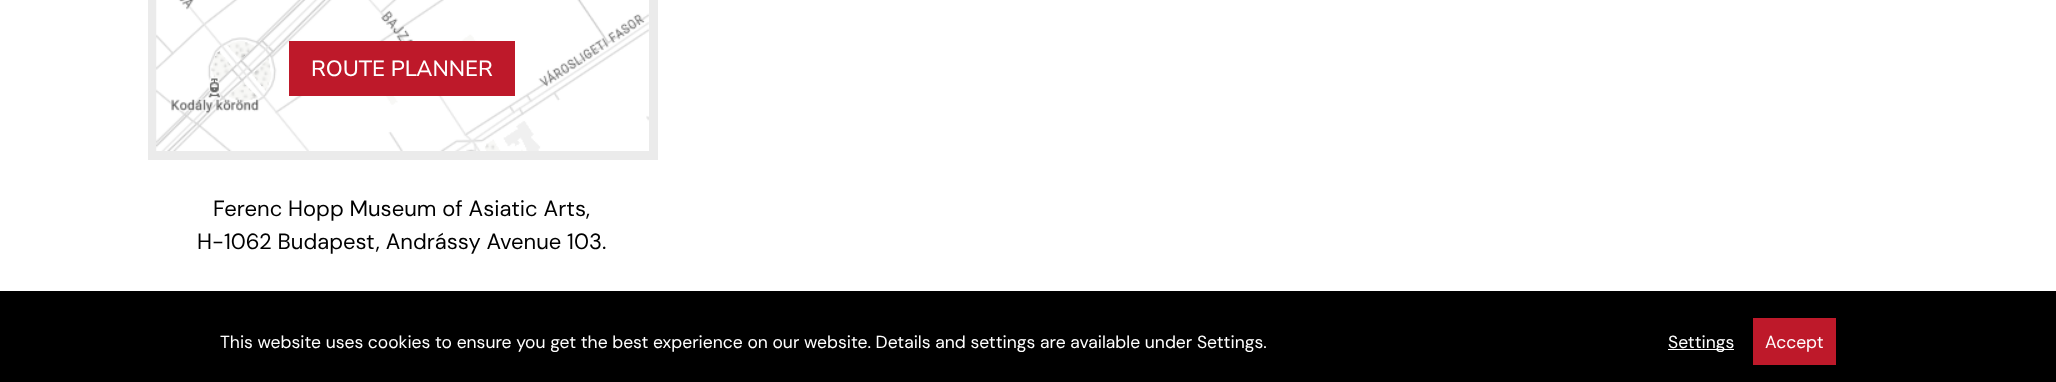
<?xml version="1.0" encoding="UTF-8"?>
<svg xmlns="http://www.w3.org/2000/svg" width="2056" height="382">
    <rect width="100%" height="100%" fill="#FFFFFF"/>
    <rect x="152.5" y="-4.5" width="501" height="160" fill="none" stroke="#EBEBEB" stroke-width="9"/>
    <image x="156" y="0" width="493" height="151" href="img_01.png"/>
    <rect x="289" y="41" width="226" height="55" fill="#BE192A"/>
    <text x="311" y="76" font-family="Nunito Sans" font-size="22" font-weight="500" fill="#FFFFFF">ROUTE PLANNER</text>
    <text x="213" y="216" font-family="DM Sans" font-size="22" fill="#000000">Ferenc Hopp Museum of Asiatic Arts,</text>
    <text x="197" y="249" font-family="DM Sans" font-size="22" fill="#000000">H-1062 Budapest, Andrássy Avenue 103.</text>
    <rect x="0" y="291" width="2056" height="91" fill="#000000"/>
    <text x="220" y="348" font-family="DM Sans" font-size="17.5" fill="#FFFFFF">This website uses cookies to ensure you get the best experience on our website. Details and settings are available under Settings.</text>
    <rect x="1668" y="349" width="66" height="1" fill="#FFFFFF"/>
    <text x="1668" y="348" font-family="DM Sans" font-size="17.5" fill="#FFFFFF">Settings</text>
    <rect x="1753" y="318" width="83" height="47" fill="#BE192A"/>
    <text x="1765" y="348" font-family="DM Sans" font-size="17.5" fill="#FFFFFF">Accept</text>
</svg>
